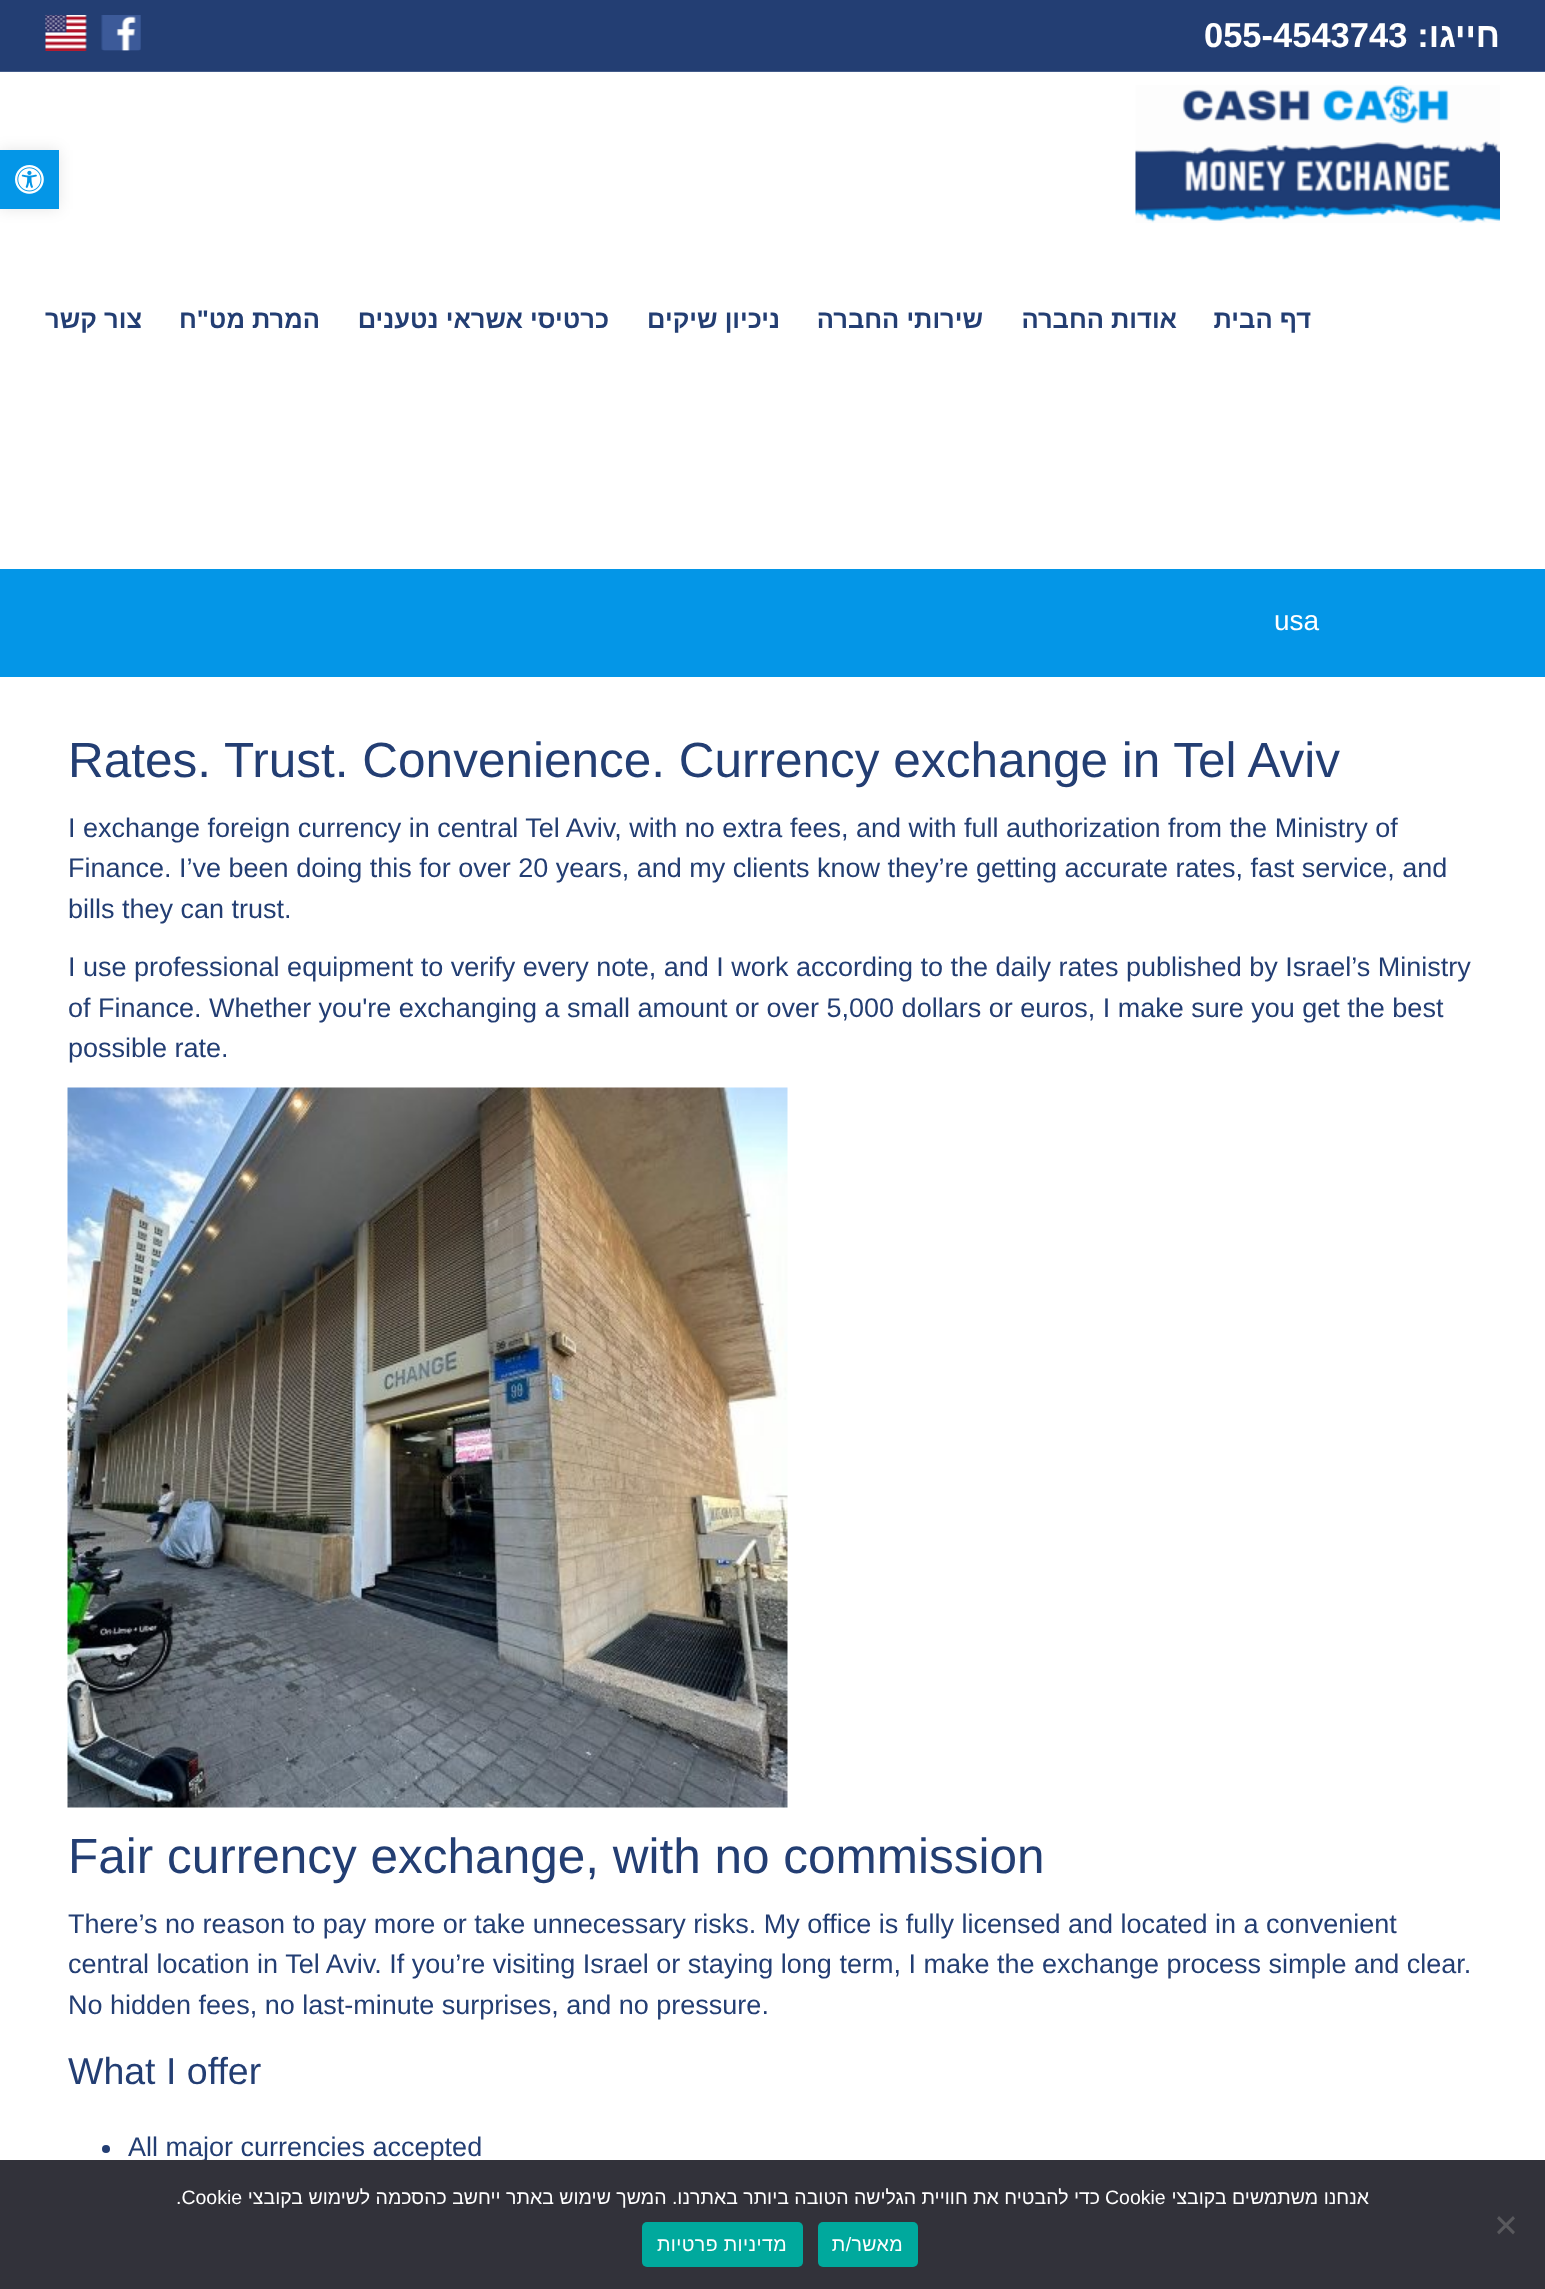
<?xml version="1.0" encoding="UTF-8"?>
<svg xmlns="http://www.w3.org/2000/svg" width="1545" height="2289">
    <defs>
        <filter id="blur1" x="-50%" y="-200%" width="200%" height="500%"><feGaussianBlur stdDeviation="7.5"/></filter>
    </defs>
    <rect width="100%" height="100%" fill="#FFFFFF"/>
    <rect x="0" y="150" width="59" height="59" fill="#000000" fill-opacity="0.1" filter="url(#blur1)"/>
    <rect x="0" y="150" width="59" height="59" fill="#0496E7"/>
    <image x="15" y="165" width="29" height="29" href="img_01.png"/>
    <rect x="0" y="0" width="1545" height="71" fill="#233E73"/>
    <rect x="0" y="71" width="1545" height="1" fill="#435B8A"/>
    <image x="45" y="15" width="42" height="36" href="img_02.png"/>
    <image x="101" y="15" width="40" height="36" href="img_03.png"/>
    <text x="1204" y="47" font-family="Liberation Sans" font-size="34.5" font-weight="700" fill="#FFFFFF">055-4543743</text>
    <text x="1500" y="47" font-family="Liberation Sans" font-size="34.5" font-weight="700" direction="rtl" fill="#FFFFFF">חייגו:</text>
    <image x="1135" y="85" width="365" height="138" href="img_04.png"/>
    <text x="142" y="328" font-family="Liberation Sans" font-size="25.5" font-weight="700" direction="rtl" fill="#233E73">צור קשר</text>
    <text x="320" y="328" font-family="Liberation Sans" font-size="25.5" font-weight="700" direction="rtl" fill="#233E73">המרת מט"ח</text>
    <text x="609" y="328" font-family="Liberation Sans" font-size="25.5" font-weight="700" direction="rtl" fill="#233E73">כרטיסי אשראי נטענים</text>
    <text x="780" y="328" font-family="Liberation Sans" font-size="25.5" font-weight="700" direction="rtl" fill="#233E73">ניכיון שיקים</text>
    <text x="983" y="328" font-family="Liberation Sans" font-size="25.5" font-weight="700" direction="rtl" fill="#233E73">שירותי החברה</text>
    <text x="1177" y="328" font-family="Liberation Sans" font-size="25.5" font-weight="700" direction="rtl" fill="#233E73">אודות החברה</text>
    <text x="1311" y="328" font-family="Liberation Sans" font-size="25.5" font-weight="700" direction="rtl" fill="#233E73">דף הבית</text>
    <rect x="0" y="569" width="1545" height="108" fill="#0496E7"/>
    <text x="1274" y="630" font-family="Liberation Sans" font-size="28" fill="#FFFFFF">usa</text>
    <text x="68" y="777" font-family="Liberation Sans" font-size="49.5" fill="#233E73">Rates. Trust. Convenience. Currency exchange in Tel Aviv</text>
    <text font-family="Liberation Sans" font-size="27" fill="#233E73">
        <tspan x="68" y="837">I exchange foreign currency in central Tel Aviv, with no extra fees, and with full authorization from the Ministry of</tspan>
        <tspan x="68" y="877">Finance. I’ve been doing this for over 20 years, and my clients know they’re getting accurate rates, fast service, and</tspan>
        <tspan x="68" y="918">bills they can trust.</tspan>
    </text>
    <text font-family="Liberation Sans" font-size="27" fill="#233E73">
        <tspan x="68" y="976">I use professional equipment to verify every note, and I work according to the daily rates published by Israel’s Ministry</tspan>
        <tspan x="68" y="1017">of Finance. Whether you're exchanging a small amount or over 5,000 dollars or euros, I make sure you get the best</tspan>
        <tspan x="68" y="1057">possible rate.</tspan>
    </text>
    <image x="67" y="1087" width="721" height="721" href="img_05.png"/>
    <text x="68" y="1873" font-family="Liberation Sans" font-size="49.5" fill="#233E73">Fair currency exchange, with no commission</text>
    <text font-family="Liberation Sans" font-size="27" fill="#233E73">
        <tspan x="68" y="1933">There’s no reason to pay more or take unnecessary risks. My office is fully licensed and located in a convenient</tspan>
        <tspan x="68" y="1973">central location in Tel Aviv. If you’re visiting Israel or staying long term, I make the exchange process simple and clear.</tspan>
        <tspan x="68" y="2014">No hidden fees, no last-minute surprises, and no pressure.</tspan>
    </text>
    <text x="68" y="2084" font-family="Liberation Sans" font-size="37.5" fill="#233E73">What I offer</text>
    <circle cx="106" cy="2149" r="4" fill="#233E73"/>
    <text x="128" y="2156" font-family="Liberation Sans" font-size="27" fill="#233E73">All major currencies accepted</text>
    <rect x="0" y="2160" width="1545" height="129" fill="#32323A"/>
    <text x="176" y="2204" font-family="Liberation Sans" font-size="19.5" fill="#FFFFFF">.Cookie</text>
    <text x="1100" y="2204" font-family="Liberation Sans" font-size="19.5" direction="rtl" fill="#FFFFFF">כדי להבטיח את חוויית הגלישה הטובה ביותר באתרנו. המשך שימוש באתר ייחשב כהסכמה לשימוש בקובצי</text>
    <text x="1105" y="2204" font-family="Liberation Sans" font-size="19.5" fill="#FFFFFF">Cookie</text>
    <text x="1369" y="2204" font-family="Liberation Sans" font-size="19.5" direction="rtl" fill="#FFFFFF">אנחנו משתמשים בקובצי</text>
    <path d="M 1513 2216 L 1515 2218.5 L 1499 2234.5 L 1497 2232 Z" fill="#59595D"/>
    <path d="M 1497 2218.5 L 1499 2216 L 1515 2232 L 1513 2234.5 Z" fill="#59595D"/>
    <rect x="642" y="2222" width="161" height="45" rx="5" fill="#00A99D"/>
    <text x="787" y="2251" font-family="Liberation Sans" font-size="19.5" letter-spacing="0.4" direction="rtl" fill="#FFFFFF">מדיניות פרטיות</text>
    <rect x="818" y="2222" width="100" height="45" rx="5" fill="#00A99D"/>
    <text x="903" y="2251" font-family="Liberation Sans" font-size="19.5" letter-spacing="0.4" direction="rtl" fill="#FFFFFF">מאשר/ת</text>
</svg>
